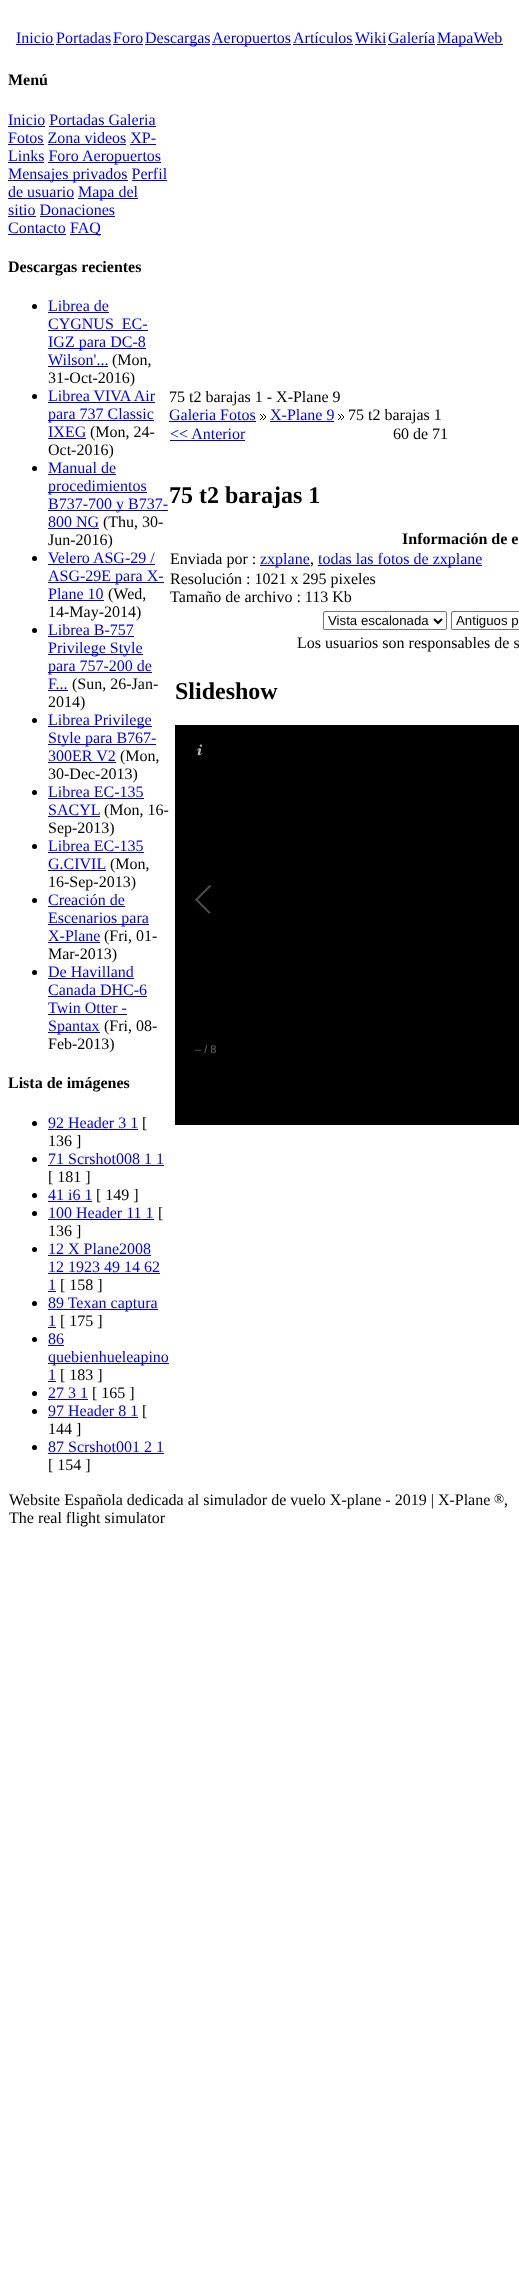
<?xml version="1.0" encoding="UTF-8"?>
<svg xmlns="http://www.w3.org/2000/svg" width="519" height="2290">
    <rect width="100%" height="100%" fill="#FFFFFF"/>
    <text x="16" y="43" font-family="Liberation Serif" font-size="16" fill="#0000EE">Inicio</text>
    <rect x="16" y="44" width="38" height="1" fill="#0000EE"/>
    <text x="56" y="43" font-family="Liberation Serif" font-size="16" fill="#0000EE">Portadas</text>
    <rect x="56" y="44" width="55" height="1" fill="#0000EE"/>
    <text x="113" y="43" font-family="Liberation Serif" font-size="16" fill="#0000EE">Foro</text>
    <rect x="113" y="44" width="30" height="1" fill="#0000EE"/>
    <rect x="145" y="44" width="65" height="1" fill="#0000EE"/>
    <text x="145" y="43" font-family="Liberation Serif" font-size="16" fill="#0000EE">Descargas</text>
    <rect x="212" y="44" width="79" height="1" fill="#0000EE"/>
    <text x="212" y="43" font-family="Liberation Serif" font-size="16" fill="#0000EE">Aeropuertos</text>
    <text x="293" y="43" font-family="Liberation Serif" font-size="16" fill="#0000EE">Artículos</text>
    <rect x="293" y="44" width="60" height="1" fill="#0000EE"/>
    <text x="355" y="43" font-family="Liberation Serif" font-size="16" fill="#0000EE">Wiki</text>
    <rect x="355" y="44" width="31" height="1" fill="#0000EE"/>
    <text x="388" y="43" font-family="Liberation Serif" font-size="16" fill="#0000EE">Galería</text>
    <rect x="388" y="44" width="47" height="1" fill="#0000EE"/>
    <rect x="437" y="44" width="66" height="1" fill="#0000EE"/>
    <text x="437" y="43" font-family="Liberation Serif" font-size="16" fill="#0000EE">MapaWeb</text>
    <text x="8" y="85" font-family="Liberation Serif" font-size="16" font-weight="700" fill="#000000">Menú</text>
    <text x="8" y="125" font-family="Liberation Serif" font-size="16" fill="#0000EE">Inicio Portadas Galeria</text>
    <rect x="8" y="126" width="37" height="1" fill="#0000EE"/>
    <rect x="49" y="126" width="107" height="1" fill="#0000EE"/>
    <text x="8" y="143" font-family="Liberation Serif" font-size="16" fill="#0000EE">Fotos Zona videos XP-</text>
    <rect x="8" y="144" width="36" height="1" fill="#0000EE"/>
    <rect x="48" y="144" width="78" height="1" fill="#0000EE"/>
    <text x="8" y="161" font-family="Liberation Serif" font-size="16" fill="#0000EE">Links Foro</text>
    <rect x="130" y="144" width="26" height="1" fill="#0000EE"/>
    <rect x="8" y="162" width="36" height="1" fill="#0000EE"/>
    <rect x="48" y="162" width="113" height="1" fill="#0000EE"/>
    <text x="82" y="161" font-family="Liberation Serif" font-size="16" fill="#0000EE">Aeropuertos</text>
    <rect x="8" y="180" width="120" height="1" fill="#0000EE"/>
    <text font-family="Liberation Serif" font-size="16" fill="#0000EE">
        <tspan x="8" y="179">Mensajes privados Perfil</tspan>
        <tspan x="8" y="197">de usuario</tspan>
    </text>
    <rect x="132" y="180" width="35" height="1" fill="#0000EE"/>
    <rect x="8" y="198" width="66" height="1" fill="#0000EE"/>
    <rect x="78" y="198" width="60" height="1" fill="#0000EE"/>
    <text x="78" y="197" font-family="Liberation Serif" font-size="16" fill="#0000EE">Mapa del</text>
    <text x="8" y="215" font-family="Liberation Serif" font-size="16" fill="#0000EE">sitio Donaciones</text>
    <rect x="8" y="216" width="28" height="1" fill="#0000EE"/>
    <rect x="40" y="216" width="75" height="1" fill="#0000EE"/>
    <text x="8" y="233" font-family="Liberation Serif" font-size="16" fill="#0000EE">Contacto</text>
    <rect x="8" y="234" width="58" height="1" fill="#0000EE"/>
    <rect x="70" y="234" width="31" height="1" fill="#0000EE"/>
    <text x="70" y="233" font-family="Liberation Serif" font-size="16" fill="#0000EE">FAQ</text>
    <text x="8" y="272" font-family="Liberation Serif" font-size="16" font-weight="700" fill="#000000">Descargas recientes</text>
    <circle cx="34.5" cy="306.5" r="2.5" fill="#000000"/>
    <text x="48" y="311" font-family="Liberation Serif" font-size="16" fill="#0000EE">Librea de</text>
    <rect x="48" y="312" width="61" height="1" fill="#0000EE"/>
    <rect x="48" y="330" width="100" height="1" fill="#0000EE"/>
    <text x="48" y="329" font-family="Liberation Serif" font-size="16" fill="#0000EE">CYGNUS_EC-</text>
    <rect x="48" y="348" width="98" height="1" fill="#0000EE"/>
    <text font-family="Liberation Serif" font-size="16" fill="#0000EE">
        <tspan x="48" y="347">IGZ para DC-8</tspan>
        <tspan x="48" y="365">Wilson'...</tspan>
    </text>
    <rect x="48" y="366" width="60" height="1" fill="#0000EE"/>
    <text x="112" y="365" font-family="Liberation Serif" font-size="16" fill="#000000">(Mon,</text>
    <text x="48" y="383" font-family="Liberation Serif" font-size="16" fill="#000000">31-Oct-2016)</text>
    <circle cx="34.5" cy="396.5" r="2.5" fill="#000000"/>
    <text x="48" y="401" font-family="Liberation Serif" font-size="16" fill="#0000EE">Librea VIVA Air</text>
    <rect x="48" y="402" width="107" height="1" fill="#0000EE"/>
    <rect x="48" y="420" width="106" height="1" fill="#0000EE"/>
    <text font-family="Liberation Serif" font-size="16" fill="#0000EE">
        <tspan x="48" y="419">para 737 Classic</tspan>
        <tspan x="48" y="437">IXEG</tspan>
    </text>
    <rect x="48" y="438" width="38" height="1" fill="#0000EE"/>
    <text x="90" y="437" font-family="Liberation Serif" font-size="16" fill="#000000">(Mon, 24-</text>
    <text x="48" y="455" font-family="Liberation Serif" font-size="16" fill="#000000">Oct-2016)</text>
    <circle cx="34.5" cy="468.5" r="2.5" fill="#000000"/>
    <text x="48" y="473" font-family="Liberation Serif" font-size="16" fill="#0000EE">Manual de</text>
    <rect x="48" y="474" width="68" height="1" fill="#0000EE"/>
    <rect x="48" y="492" width="99" height="1" fill="#0000EE"/>
    <text x="48" y="491" font-family="Liberation Serif" font-size="16" fill="#0000EE">procedimientos</text>
    <rect x="48" y="510" width="120" height="1" fill="#0000EE"/>
    <text font-family="Liberation Serif" font-size="16" fill="#0000EE">
        <tspan x="48" y="509">B737-700 y B737-</tspan>
        <tspan x="48" y="527">800 NG</tspan>
    </text>
    <rect x="48" y="528" width="51" height="1" fill="#0000EE"/>
    <text x="103" y="527" font-family="Liberation Serif" font-size="16" fill="#000000">(Thu, 30-</text>
    <text x="48" y="545" font-family="Liberation Serif" font-size="16" fill="#000000">Jun-2016)</text>
    <circle cx="34.5" cy="558.5" r="2.5" fill="#000000"/>
    <text x="48" y="563" font-family="Liberation Serif" font-size="16" fill="#0000EE">Velero ASG-29 /</text>
    <rect x="48" y="564" width="107" height="1" fill="#0000EE"/>
    <rect x="48" y="582" width="116" height="1" fill="#0000EE"/>
    <text font-family="Liberation Serif" font-size="16" fill="#0000EE">
        <tspan x="48" y="581">ASG-29E para X-</tspan>
        <tspan x="48" y="599">Plane 10</tspan>
    </text>
    <rect x="48" y="600" width="56" height="1" fill="#0000EE"/>
    <text x="108" y="599" font-family="Liberation Serif" font-size="16" fill="#000000">(Wed,</text>
    <text x="48" y="617" font-family="Liberation Serif" font-size="16" fill="#000000">14-May-2014)</text>
    <circle cx="34.5" cy="630.5" r="2.5" fill="#000000"/>
    <text x="48" y="635" font-family="Liberation Serif" font-size="16" fill="#0000EE">Librea B-757</text>
    <rect x="48" y="636" width="86" height="1" fill="#0000EE"/>
    <rect x="48" y="654" width="95" height="1" fill="#0000EE"/>
    <text x="48" y="653" font-family="Liberation Serif" font-size="16" fill="#0000EE">Privilege Style</text>
    <rect x="48" y="672" width="104" height="1" fill="#0000EE"/>
    <text font-family="Liberation Serif" font-size="16" fill="#0000EE">
        <tspan x="48" y="671">para 757-200 de</tspan>
        <tspan x="48" y="689">F...</tspan>
    </text>
    <rect x="48" y="690" width="20" height="1" fill="#0000EE"/>
    <text x="72" y="689" font-family="Liberation Serif" font-size="16" fill="#000000">(Sun, 26-Jan-</text>
    <text x="48" y="707" font-family="Liberation Serif" font-size="16" fill="#000000">2014)</text>
    <circle cx="34.5" cy="720.5" r="2.5" fill="#000000"/>
    <rect x="48" y="726" width="104" height="1" fill="#0000EE"/>
    <text x="48" y="725" font-family="Liberation Serif" font-size="16" fill="#0000EE">Librea Privilege</text>
    <rect x="48" y="744" width="108" height="1" fill="#0000EE"/>
    <text font-family="Liberation Serif" font-size="16" fill="#0000EE">
        <tspan x="48" y="743">Style para B767-</tspan>
        <tspan x="48" y="761">300ER V2</tspan>
    </text>
    <rect x="48" y="762" width="68" height="1" fill="#0000EE"/>
    <text x="120" y="761" font-family="Liberation Serif" font-size="16" fill="#000000">(Mon,</text>
    <text x="48" y="779" font-family="Liberation Serif" font-size="16" fill="#000000">30-Dec-2013)</text>
    <circle cx="34.5" cy="792.5" r="2.5" fill="#000000"/>
    <text x="48" y="797" font-family="Liberation Serif" font-size="16" fill="#0000EE">Librea EC-135</text>
    <rect x="48" y="798" width="96" height="1" fill="#0000EE"/>
    <text x="48" y="815" font-family="Liberation Serif" font-size="16" fill="#0000EE">SACYL</text>
    <rect x="48" y="816" width="52" height="1" fill="#0000EE"/>
    <text x="104" y="815" font-family="Liberation Serif" font-size="16" fill="#000000">(Mon, 16-</text>
    <text x="48" y="833" font-family="Liberation Serif" font-size="16" fill="#000000">Sep-2013)</text>
    <circle cx="34.5" cy="846.5" r="2.5" fill="#000000"/>
    <text x="48" y="851" font-family="Liberation Serif" font-size="16" fill="#0000EE">Librea EC-135</text>
    <rect x="48" y="852" width="96" height="1" fill="#0000EE"/>
    <text x="48" y="869" font-family="Liberation Serif" font-size="16" fill="#0000EE">G.CIVIL</text>
    <rect x="48" y="870" width="58" height="1" fill="#0000EE"/>
    <text x="110" y="869" font-family="Liberation Serif" font-size="16" fill="#000000">(Mon,</text>
    <text x="48" y="887" font-family="Liberation Serif" font-size="16" fill="#000000">16-Sep-2013)</text>
    <circle cx="34.5" cy="900.5" r="2.5" fill="#000000"/>
    <text x="48" y="905" font-family="Liberation Serif" font-size="16" fill="#0000EE">Creación de</text>
    <rect x="48" y="906" width="77" height="1" fill="#0000EE"/>
    <rect x="48" y="924" width="101" height="1" fill="#0000EE"/>
    <text font-family="Liberation Serif" font-size="16" fill="#0000EE">
        <tspan x="48" y="923">Escenarios para</tspan>
        <tspan x="48" y="941">X-Plane</tspan>
    </text>
    <rect x="48" y="942" width="52" height="1" fill="#0000EE"/>
    <text x="104" y="941" font-family="Liberation Serif" font-size="16" fill="#000000">(Fri, 01-</text>
    <text x="48" y="959" font-family="Liberation Serif" font-size="16" fill="#000000">Mar-2013)</text>
    <circle cx="34.5" cy="972.5" r="2.5" fill="#000000"/>
    <text x="48" y="977" font-family="Liberation Serif" font-size="16" fill="#0000EE">De Havilland</text>
    <rect x="48" y="978" width="86" height="1" fill="#0000EE"/>
    <text x="48" y="995" font-family="Liberation Serif" font-size="16" fill="#0000EE">Canada DHC-6</text>
    <rect x="48" y="996" width="99" height="1" fill="#0000EE"/>
    <text x="48" y="1013" font-family="Liberation Serif" font-size="16" fill="#0000EE">Twin Otter -</text>
    <rect x="48" y="1014" width="79" height="1" fill="#0000EE"/>
    <rect x="48" y="1032" width="52" height="1" fill="#0000EE"/>
    <text x="48" y="1031" font-family="Liberation Serif" font-size="16" fill="#0000EE">Spantax</text>
    <text x="104" y="1031" font-family="Liberation Serif" font-size="16" fill="#000000">(Fri, 08-</text>
    <text x="48" y="1049" font-family="Liberation Serif" font-size="16" fill="#000000">Feb-2013)</text>
    <text x="8" y="1088" font-family="Liberation Serif" font-size="16" font-weight="700" fill="#000000">Lista de imágenes</text>
    <circle cx="34.5" cy="1123.5" r="2.5" fill="#000000"/>
    <text x="48" y="1128" font-family="Liberation Serif" font-size="16" fill="#0000EE">92 Header 3 1</text>
    <rect x="48" y="1129" width="90" height="1" fill="#0000EE"/>
    <text x="142" y="1128" font-family="Liberation Serif" font-size="16" fill="#000000">[</text>
    <text x="48" y="1146" font-family="Liberation Serif" font-size="16" fill="#000000">136 ]</text>
    <circle cx="34.5" cy="1159.5" r="2.5" fill="#000000"/>
    <text x="48" y="1164" font-family="Liberation Serif" font-size="16" fill="#0000EE">71 Scrshot008 1 1</text>
    <rect x="48" y="1165" width="116" height="1" fill="#0000EE"/>
    <text x="48" y="1182" font-family="Liberation Serif" font-size="16" fill="#000000">[ 181 ]</text>
    <circle cx="34.5" cy="1195.5" r="2.5" fill="#000000"/>
    <text x="48" y="1200" font-family="Liberation Serif" font-size="16" fill="#0000EE">41 i6 1</text>
    <rect x="48" y="1201" width="44" height="1" fill="#0000EE"/>
    <text x="96" y="1200" font-family="Liberation Serif" font-size="16" fill="#000000">[ 149 ]</text>
    <circle cx="34.5" cy="1213.5" r="2.5" fill="#000000"/>
    <text x="48" y="1218" font-family="Liberation Serif" font-size="16" fill="#0000EE">100 Header 11 1</text>
    <rect x="48" y="1219" width="106" height="1" fill="#0000EE"/>
    <text x="158" y="1218" font-family="Liberation Serif" font-size="16" fill="#000000">[</text>
    <text x="48" y="1236" font-family="Liberation Serif" font-size="16" fill="#000000">136 ]</text>
    <circle cx="34.5" cy="1249.5" r="2.5" fill="#000000"/>
    <text x="48" y="1254" font-family="Liberation Serif" font-size="16" fill="#0000EE">12 X Plane2008</text>
    <rect x="48" y="1255" width="103" height="1" fill="#0000EE"/>
    <text x="48" y="1272" font-family="Liberation Serif" font-size="16" fill="#0000EE">12 1923 49 14 62</text>
    <rect x="48" y="1273" width="112" height="1" fill="#0000EE"/>
    <text x="48" y="1290" font-family="Liberation Serif" font-size="16" fill="#0000EE">1</text>
    <rect x="48" y="1291" width="8" height="1" fill="#0000EE"/>
    <text x="60" y="1290" font-family="Liberation Serif" font-size="16" fill="#000000">[ 158 ]</text>
    <circle cx="34.5" cy="1303.5" r="2.5" fill="#000000"/>
    <rect x="48" y="1309" width="110" height="1" fill="#0000EE"/>
    <text font-family="Liberation Serif" font-size="16" fill="#0000EE">
        <tspan x="48" y="1308">89 Texan captura</tspan>
        <tspan x="48" y="1326">1</tspan>
    </text>
    <rect x="48" y="1327" width="8" height="1" fill="#0000EE"/>
    <text x="60" y="1326" font-family="Liberation Serif" font-size="16" fill="#000000">[ 175 ]</text>
    <circle cx="34.5" cy="1339.5" r="2.5" fill="#000000"/>
    <text x="48" y="1344" font-family="Liberation Serif" font-size="16" fill="#0000EE">86</text>
    <rect x="48" y="1345" width="16" height="1" fill="#0000EE"/>
    <rect x="48" y="1363" width="121" height="1" fill="#0000EE"/>
    <text font-family="Liberation Serif" font-size="16" fill="#0000EE">
        <tspan x="48" y="1362">quebienhueleapino</tspan>
        <tspan x="48" y="1380">1</tspan>
    </text>
    <rect x="48" y="1381" width="8" height="1" fill="#0000EE"/>
    <text x="60" y="1380" font-family="Liberation Serif" font-size="16" fill="#000000">[ 183 ]</text>
    <circle cx="34.5" cy="1393.5" r="2.5" fill="#000000"/>
    <text x="48" y="1398" font-family="Liberation Serif" font-size="16" fill="#0000EE">27 3 1</text>
    <rect x="48" y="1399" width="40" height="1" fill="#0000EE"/>
    <text x="92" y="1398" font-family="Liberation Serif" font-size="16" fill="#000000">[ 165 ]</text>
    <circle cx="34.5" cy="1411.5" r="2.5" fill="#000000"/>
    <text x="48" y="1416" font-family="Liberation Serif" font-size="16" fill="#0000EE">97 Header 8 1</text>
    <rect x="48" y="1417" width="90" height="1" fill="#0000EE"/>
    <text x="142" y="1416" font-family="Liberation Serif" font-size="16" fill="#000000">[</text>
    <text x="48" y="1434" font-family="Liberation Serif" font-size="16" fill="#000000">144 ]</text>
    <circle cx="34.5" cy="1447.5" r="2.5" fill="#000000"/>
    <text x="48" y="1452" font-family="Liberation Serif" font-size="16" fill="#0000EE">87 Scrshot001 2 1</text>
    <rect x="48" y="1453" width="116" height="1" fill="#0000EE"/>
    <text x="48" y="1470" font-family="Liberation Serif" font-size="16" fill="#000000">[ 154 ]</text>
    <text x="169" y="402" font-family="Liberation Serif" font-size="16" fill="#000000">75 t2 barajas 1 - X-Plane 9</text>
    <text x="169" y="420" font-family="Liberation Serif" font-size="16" fill="#0000EE">Galeria Fotos</text>
    <rect x="169" y="421" width="87" height="1" fill="#0000EE"/>
    <image x="260" y="414" width="6" height="6" href="img_01.png"/>
    <text x="270" y="420" font-family="Liberation Serif" font-size="16" fill="#0000EE">X-Plane 9</text>
    <rect x="270" y="421" width="64" height="1" fill="#0000EE"/>
    <image x="338" y="414" width="6" height="6" href="img_01.png"/>
    <text x="348" y="420" font-family="Liberation Serif" font-size="16" fill="#000000">75 t2 barajas 1</text>
    <text x="170" y="439" font-family="Liberation Serif" font-size="16" fill="#0000EE">&lt;&lt; Anterior</text>
    <rect x="170" y="440" width="75" height="1" fill="#0000EE"/>
    <text x="393" y="439" font-family="Liberation Serif" font-size="16" fill="#000000">60 de 71</text>
    <text x="169" y="503" font-family="Liberation Serif" font-size="24" font-weight="700" fill="#000000">75 t2 barajas 1</text>
    <text x="402" y="544" font-family="Liberation Serif" font-size="16" font-weight="700" fill="#000000">Información de e</text>
    <text x="170" y="564" font-family="Liberation Serif" font-size="16" fill="#000000">Enviada por :</text>
    <rect x="260" y="565" width="50" height="1" fill="#0000EE"/>
    <text x="260" y="564" font-family="Liberation Serif" font-size="16" fill="#0000EE">zxplane</text>
    <text x="310" y="564" font-family="Liberation Serif" font-size="16" fill="#000000">,</text>
    <rect x="318" y="565" width="164" height="1" fill="#0000EE"/>
    <text x="318" y="564" font-family="Liberation Serif" font-size="16" fill="#0000EE">todas las fotos de zxplane</text>
    <text font-family="Liberation Serif" font-size="16" fill="#000000">
        <tspan x="170" y="584">Resolución : 1021 x 295 pixeles</tspan>
        <tspan x="170" y="602">Tamaño de archivo : 113 Kb</tspan>
    </text>
    <rect x="323.5" y="611.5" width="123" height="18" rx="1.5" fill="none" stroke="#767676"/>
    <path d="M 434 619 L 438 623 L 442 619" fill="none" stroke="#000000" stroke-width="2"/>
    <text x="328" y="625" font-family="Liberation Sans" font-size="13.25" fill="#000000">Vista escalonada</text>
    <rect x="451.5" y="611.5" width="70" height="18" rx="1.5" fill="none" stroke="#767676"/>
    <text x="456" y="625" font-family="Liberation Sans" font-size="13.25" fill="#000000">Antiguos p</text>
    <text x="297" y="648" font-family="Liberation Serif" font-size="16" fill="#000000">Los usuarios son responsables de s</text>
    <text x="175" y="699" font-family="Liberation Serif" font-size="24" font-weight="700" fill="#000000">Slideshow</text>
    <rect x="175" y="725" width="344" height="400" fill="#000000"/>
    <image x="196" y="744" width="6" height="12" href="img_02.png"/>
    <image x="195" y="885" width="16" height="29" href="img_03.png"/>
    <text x="195" y="1053" font-family="Liberation Sans" font-size="11" fill="#666666">– / 8</text>
    <text x="9" y="1505" font-family="Liberation Serif" font-size="16" fill="#000000">Website Española dedicada al simulador de vuelo X-plane - 2019 | X-Plane</text>
    <text x="494" y="1503" font-family="Liberation Serif" font-size="13.25" fill="#000000">®</text>
    <text x="504" y="1505" font-family="Liberation Serif" font-size="16" fill="#000000">,</text>
    <text x="9" y="1523" font-family="Liberation Serif" font-size="16" fill="#000000">The real flight simulator</text>
</svg>
